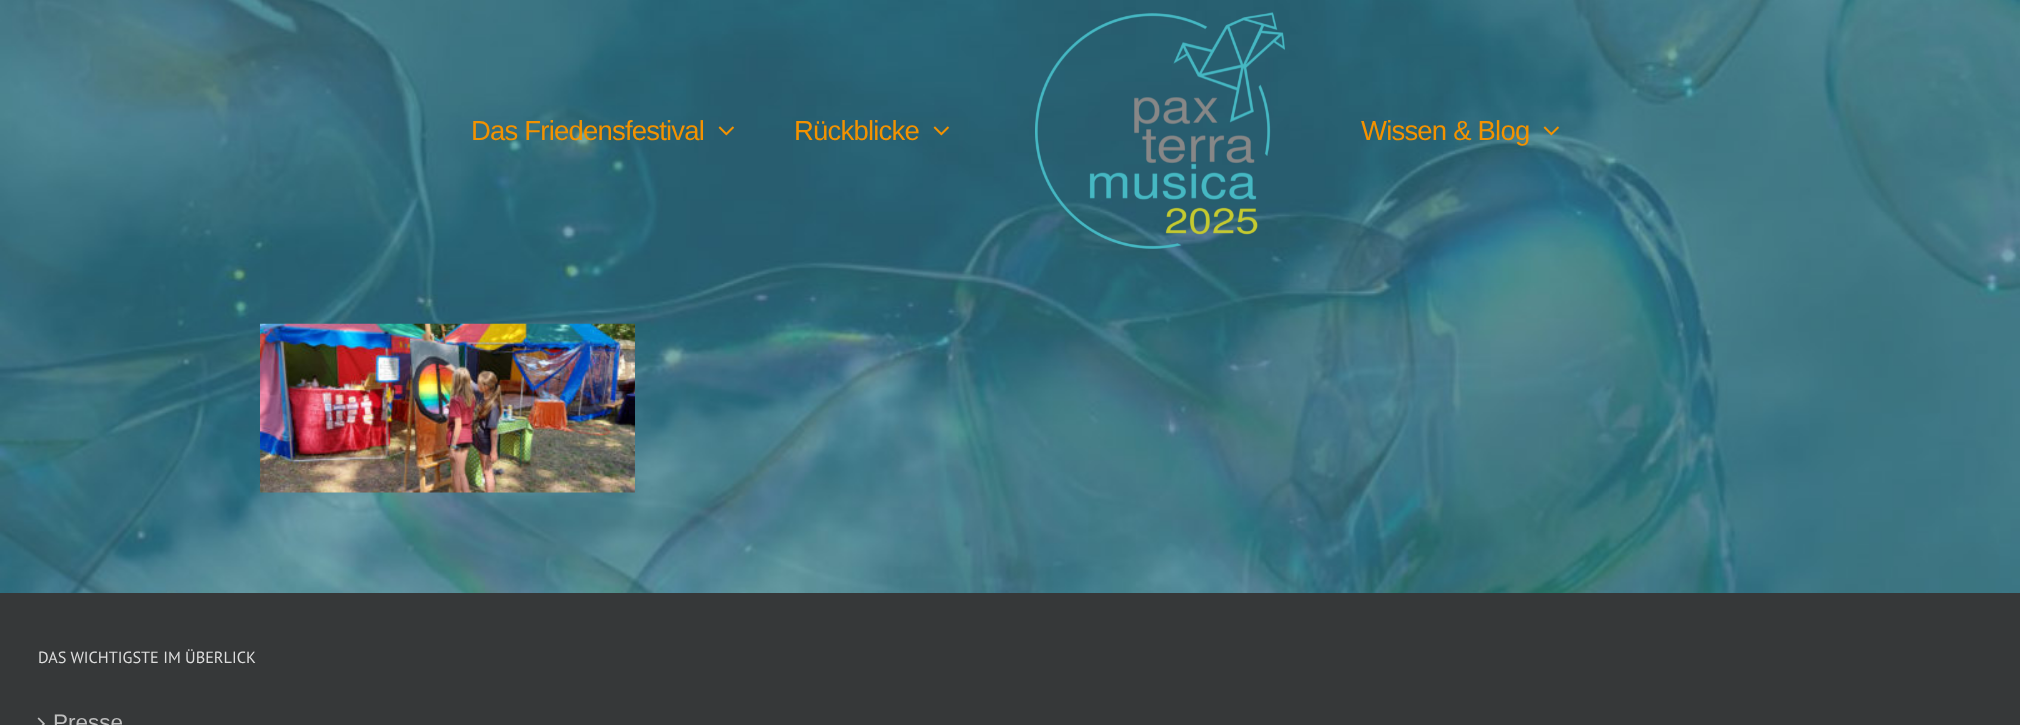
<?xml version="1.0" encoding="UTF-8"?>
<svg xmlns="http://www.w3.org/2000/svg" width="2020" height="725">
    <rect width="100%" height="100%" fill="#FFFFFF"/>
    <image x="0" y="0" width="2020" height="593" href="img_01.png"/>
    <text x="471" y="140" font-family="Liberation Sans" font-size="27.5" letter-spacing="-0.8" fill="#F39200">Das Friedensfestival</text>
    <image x="718" y="126" width="16" height="10" href="img_02.png"/>
    <text x="794" y="140" font-family="Liberation Sans" font-size="27.5" letter-spacing="-0.8" fill="#F39200">Rückblicke</text>
    <image x="933" y="126" width="16" height="10" href="img_03.png"/>
    <image x="1035" y="12" width="250" height="237" href="img_04.png"/>
    <text x="1361" y="140" font-family="Liberation Sans" font-size="27.5" letter-spacing="-0.8" fill="#F39200">Wissen &amp; Blog</text>
    <image x="1543" y="126" width="16" height="10" href="img_05.png"/>
    <image x="260" y="323" width="375" height="170" href="img_06.png"/>
    <rect x="0" y="593" width="2020" height="132" fill="#363839"/>
    <text x="38" y="663" font-family="PT Sans" font-size="16.25" fill="#DDDDDD">DAS WICHTIGSTE IM ÜBERLICK</text>
    <image x="37" y="717" width="8" height="8" href="img_07.png"/>
    <text x="53" y="730" font-family="Liberation Sans" font-size="22.5" fill="#BFBFBF">Presse</text>
</svg>
